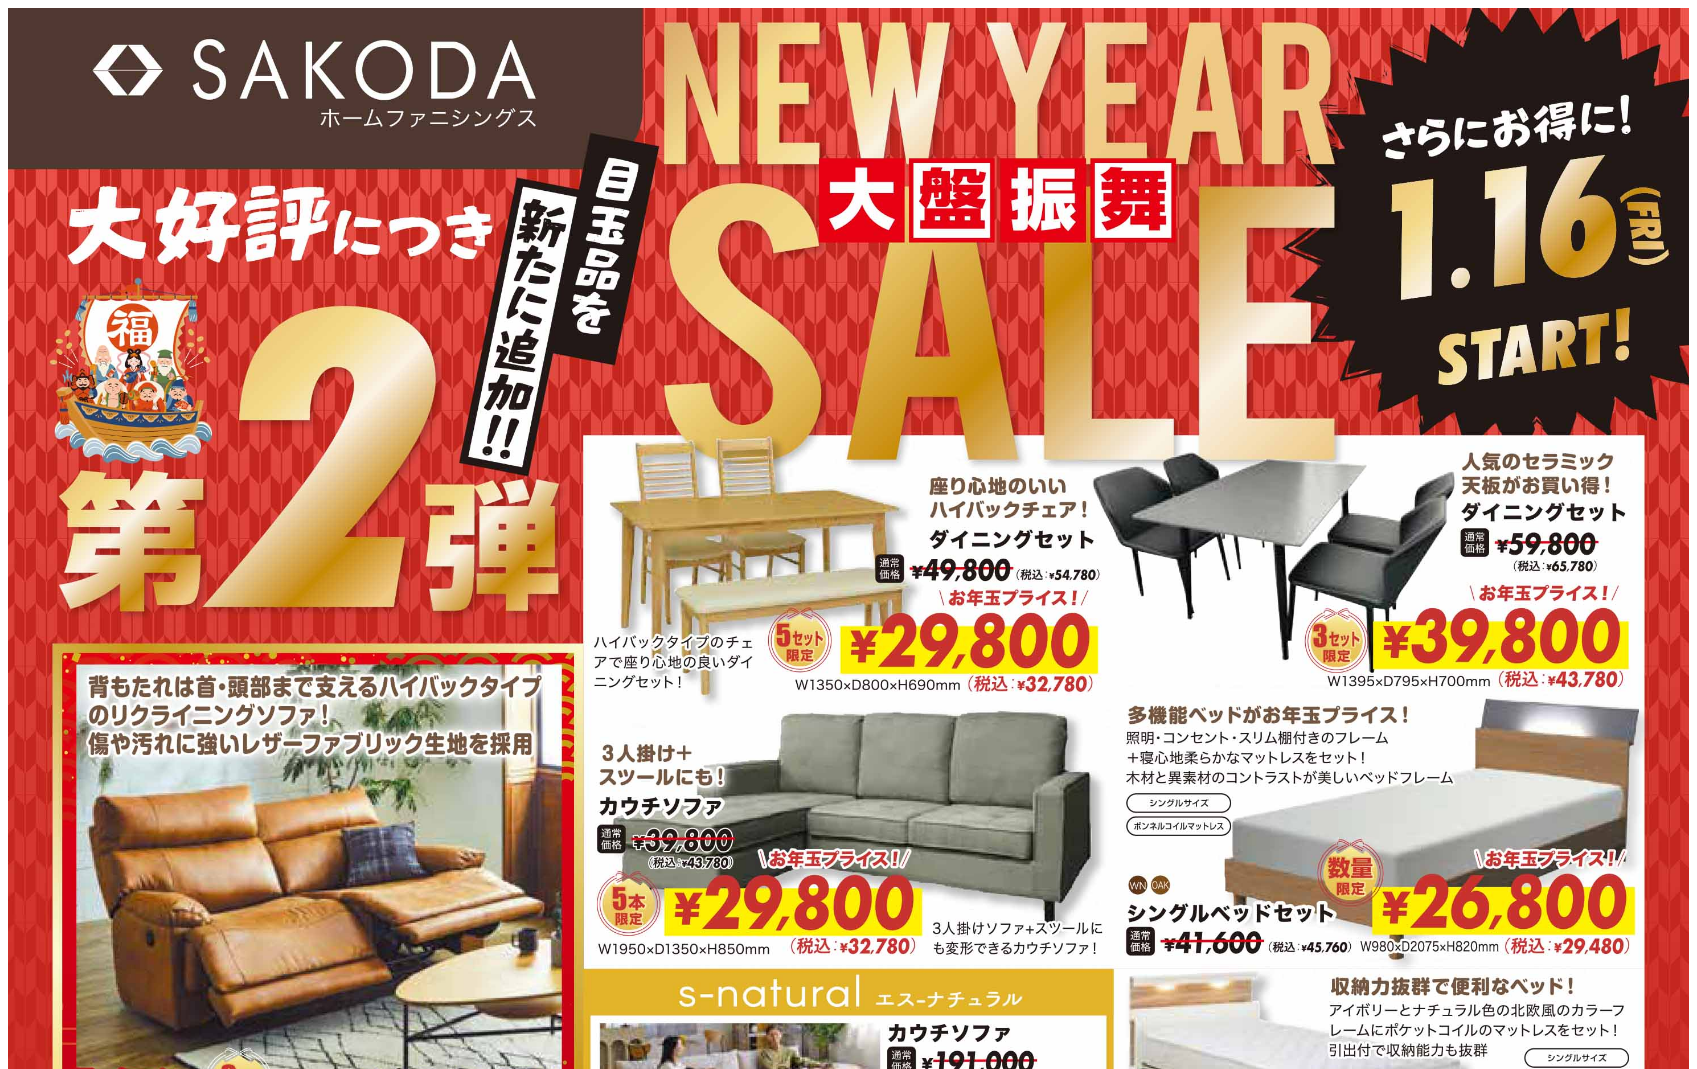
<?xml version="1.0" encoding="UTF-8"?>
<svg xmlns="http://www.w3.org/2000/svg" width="1697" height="1069">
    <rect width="100%" height="100%" fill="#FFFFFF"/>
    <image x="8" y="8" width="1681" height="1061" href="img_01.png"/>
</svg>
